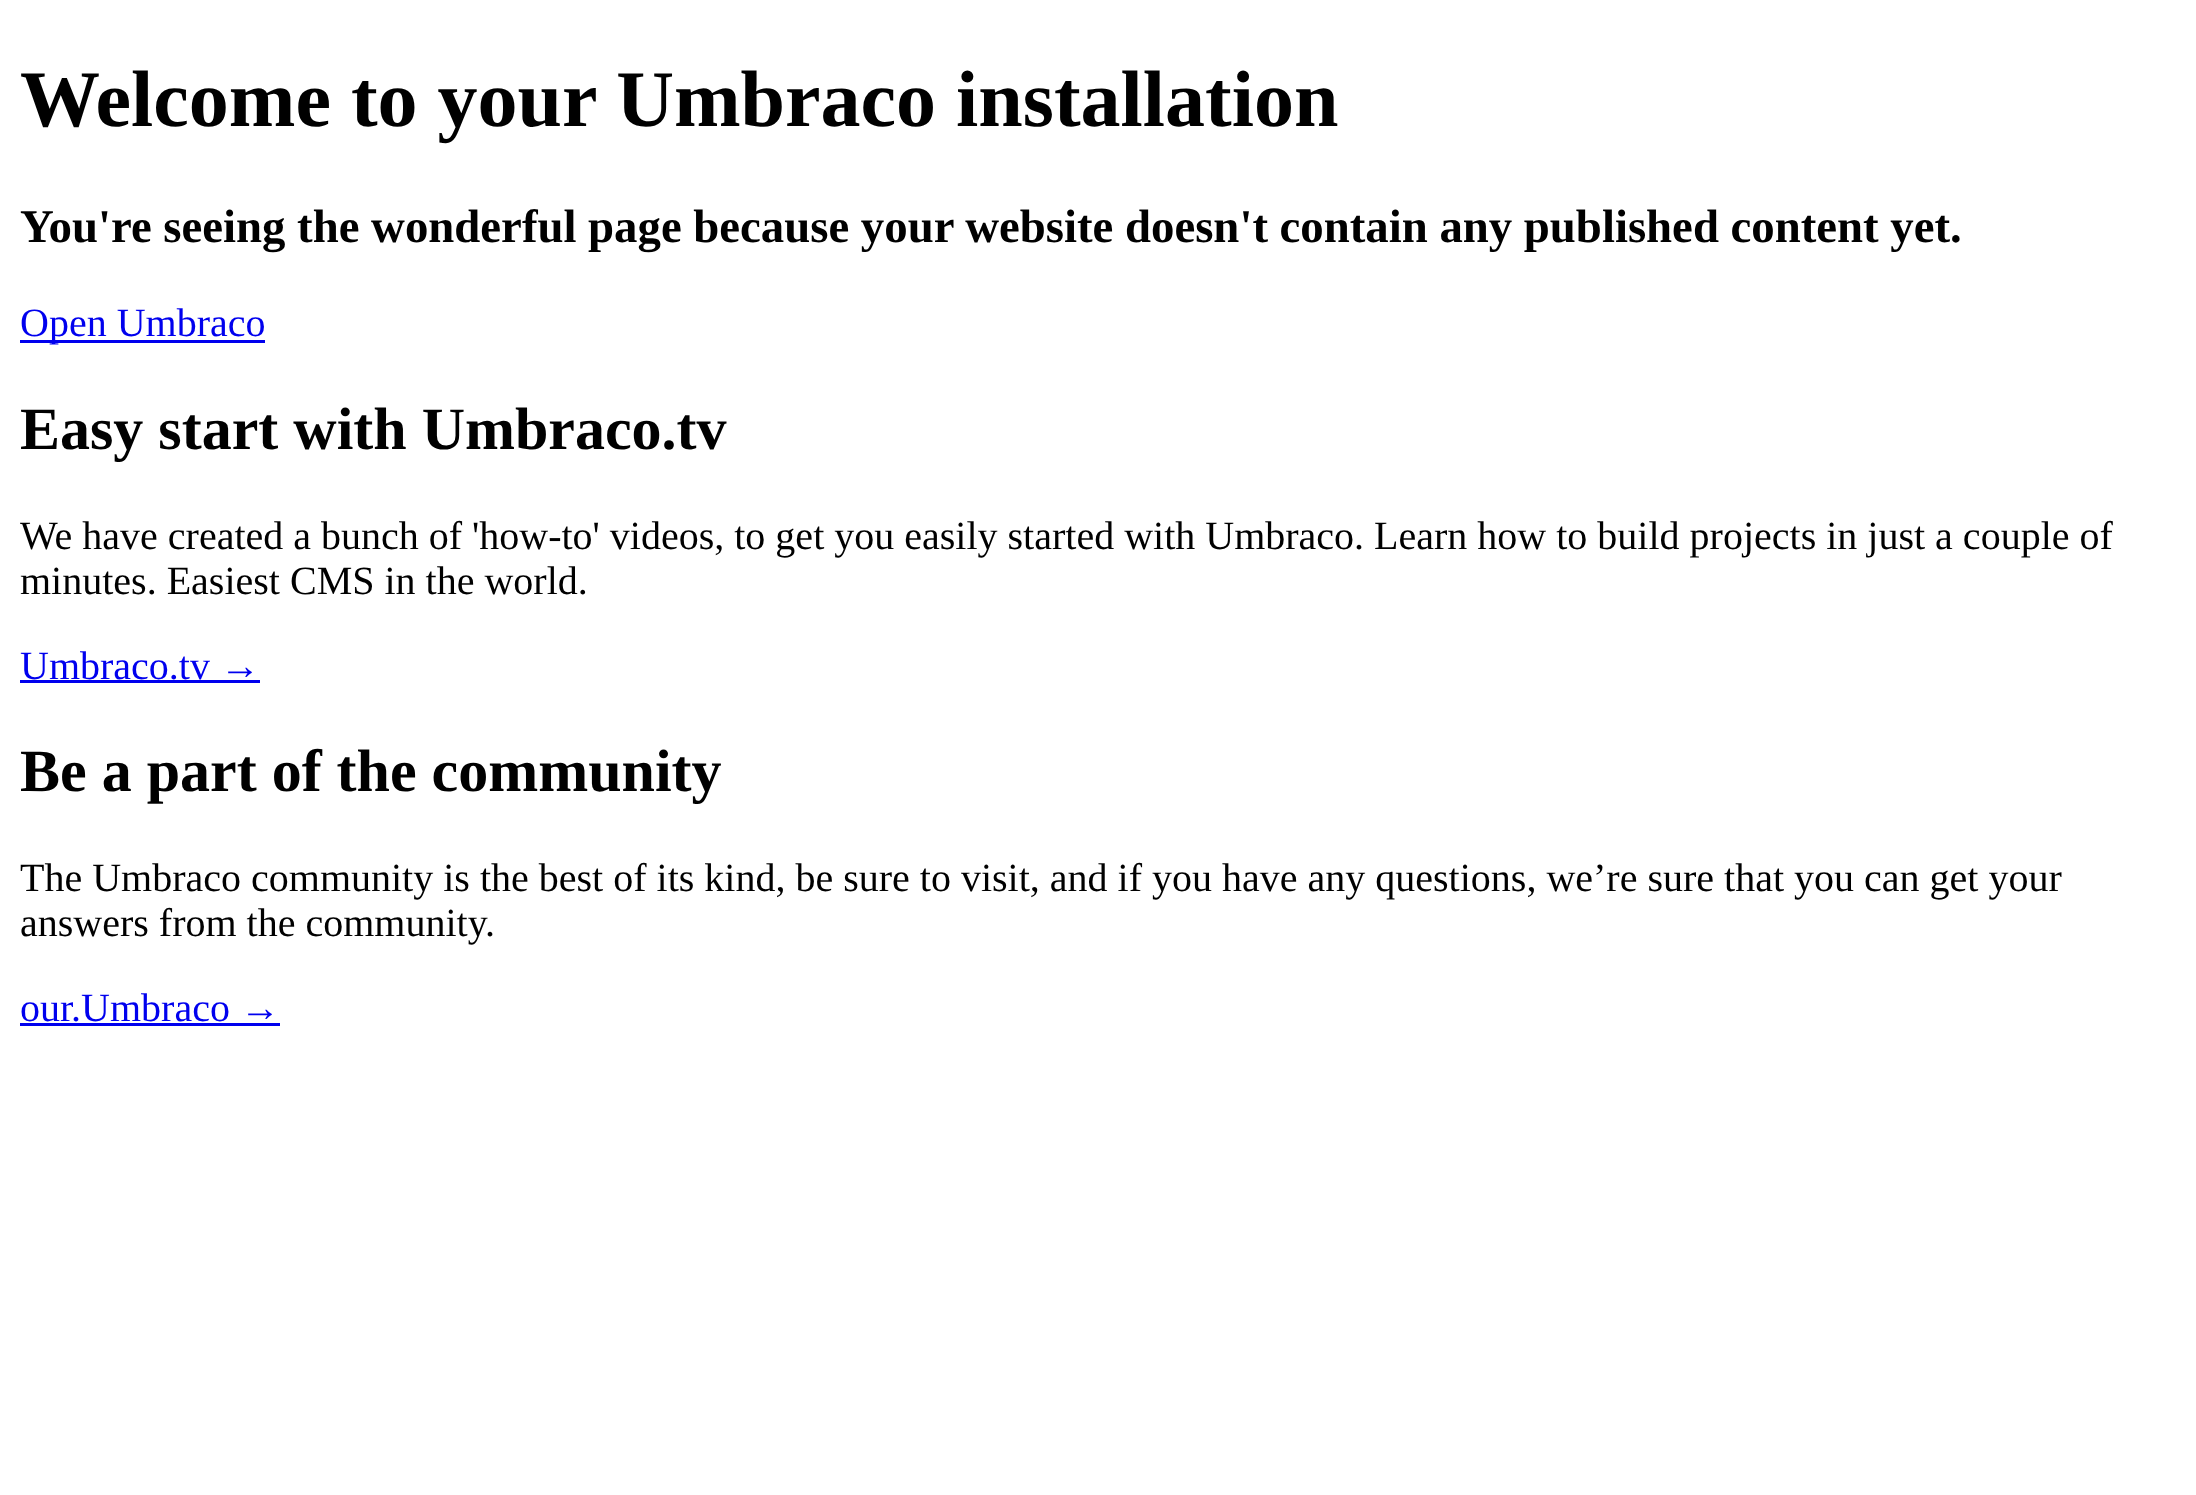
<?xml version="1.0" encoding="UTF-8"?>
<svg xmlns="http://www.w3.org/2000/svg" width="2196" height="1495">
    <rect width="100%" height="100%" fill="#FFFFFF"/>
    <text x="20" y="126" font-family="Liberation Serif" font-size="80" font-weight="700" fill="#000000">Welcome to your Umbraco installation</text>
    <text x="20" y="242" word-spacing="-0.1" font-family="Liberation Serif" font-size="46.8" font-weight="700" fill="#000000">You're seeing the wonderful page because your website doesn't contain any published content yet.</text>
    <rect x="20" y="340" width="245" height="3" fill="#0000EE"/>
    <text x="20" y="336" font-family="Liberation Serif" font-size="40" fill="#0000EE">Open Umbraco</text>
    <text x="20" y="449" font-family="Liberation Serif" font-size="60" font-weight="700" fill="#000000">Easy start with Umbraco.tv</text>
    <text font-family="Liberation Serif" font-size="40" fill="#000000">
        <tspan x="20" y="549">We have created a bunch of 'how-to' videos, to get you easily started with Umbraco. Learn how to build projects in just a couple of</tspan>
        <tspan x="20" y="594">minutes. Easiest CMS in the world.</tspan>
    </text>
    <text x="20" y="679" font-family="Liberation Serif" font-size="40" fill="#0000EE">Umbraco.tv →</text>
    <rect x="20" y="680" width="240" height="3" fill="#0000EE"/>
    <text x="20" y="791" font-family="Liberation Serif" font-size="60" font-weight="700" fill="#000000">Be a part of the community</text>
    <text font-family="Liberation Serif" font-size="40" fill="#000000">
        <tspan x="20" y="891">The Umbraco community is the best of its kind, be sure to visit, and if you have any questions, we’re sure that you can get your</tspan>
        <tspan x="20" y="936">answers from the community.</tspan>
    </text>
    <text x="20" y="1021" font-family="Liberation Serif" font-size="40" fill="#0000EE">our.Umbraco →</text>
    <rect x="20" y="1023" width="260" height="3" fill="#0000EE"/>
</svg>
